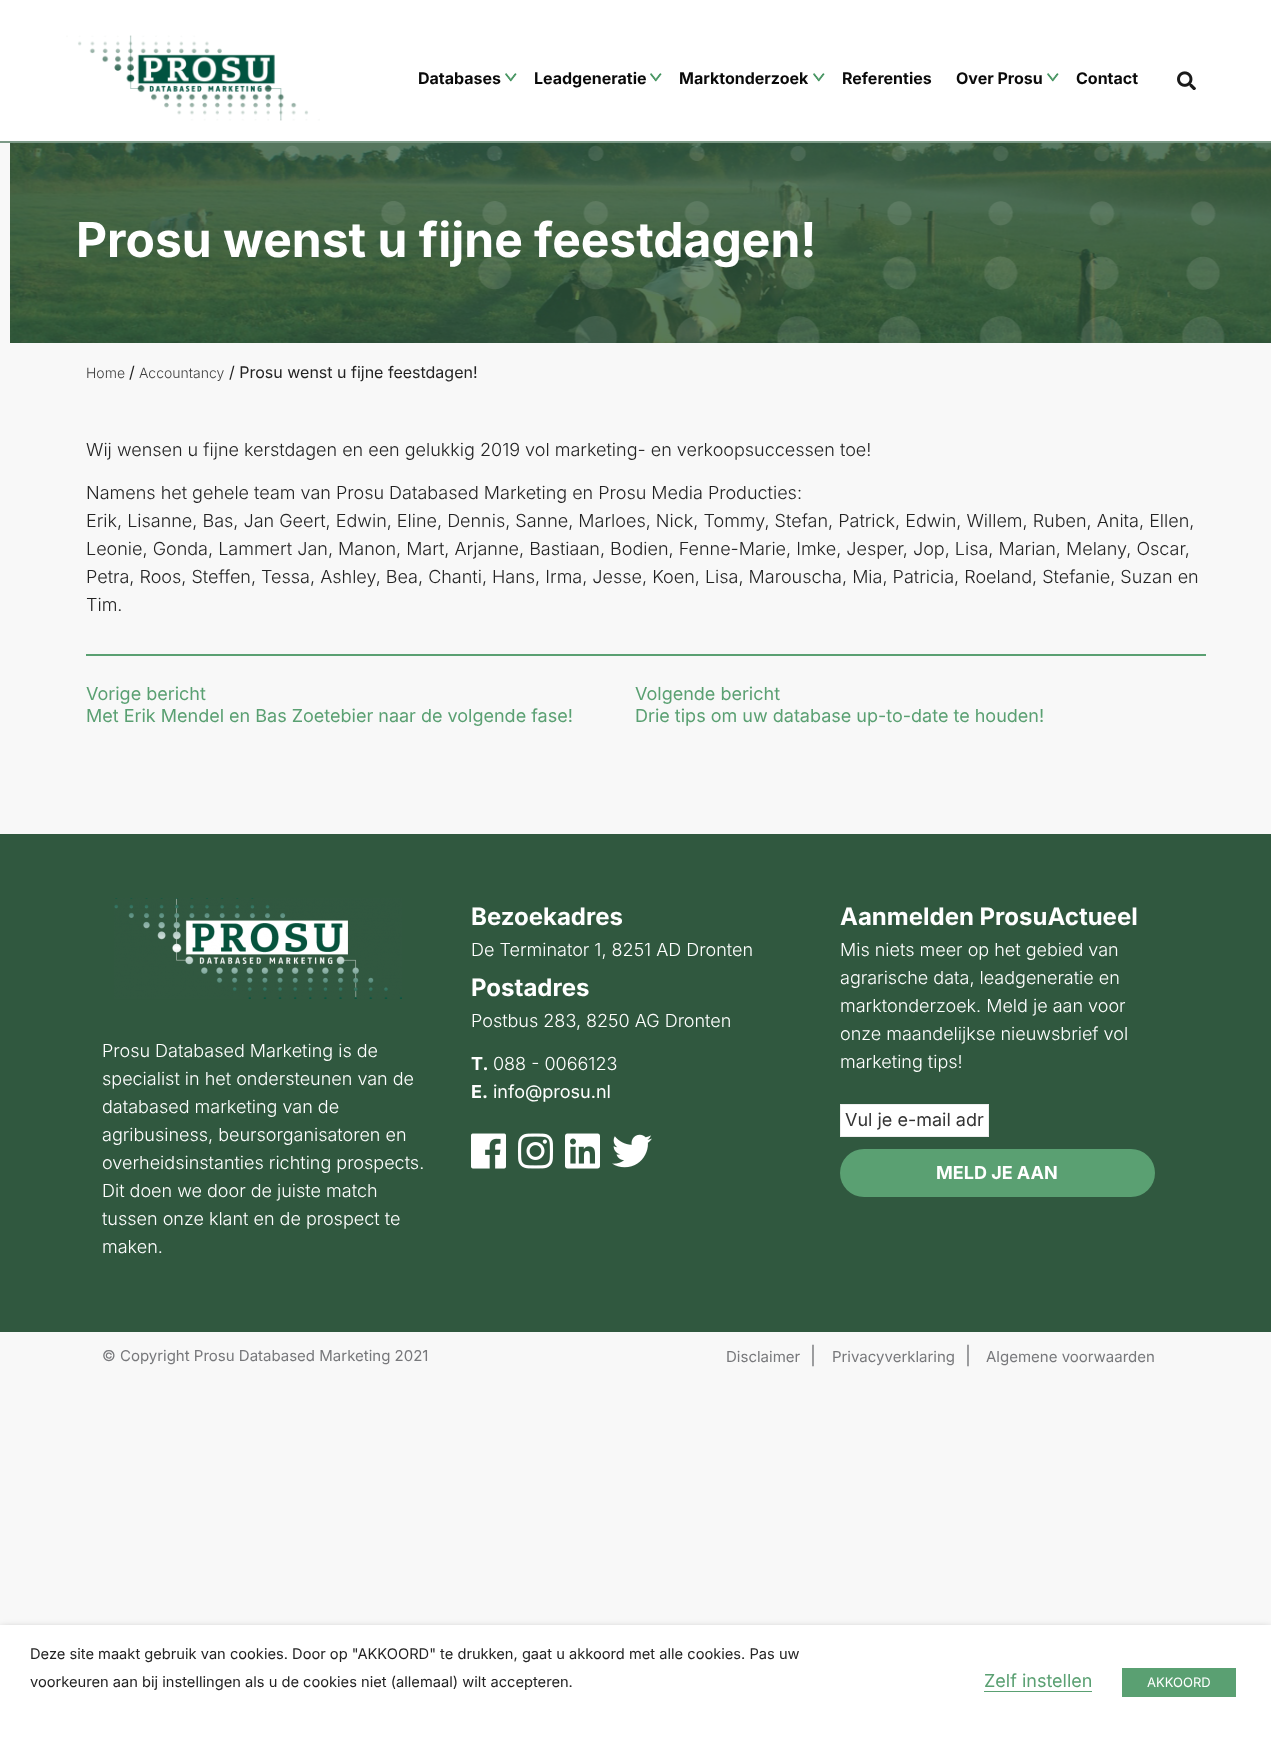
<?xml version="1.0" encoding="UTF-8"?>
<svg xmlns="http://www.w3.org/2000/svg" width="1271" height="1739">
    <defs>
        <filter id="blur1" x="-50%" y="-200%" width="200%" height="500%"><feGaussianBlur stdDeviation="5"/></filter>
    </defs>
    <rect width="100%" height="100%" fill="#F8F8F8"/>
    <rect x="0" y="0" width="1271" height="141" fill="#FFFFFF"/>
    <rect x="0" y="141" width="1271" height="2" fill="#7C9A87"/>
    <image x="66" y="35" width="254" height="86" href="img_01.png"/>
    <text x="418" y="84" font-family="Inter" font-size="16" font-weight="700" fill="#0A0A0A">Databases</text>
    <image x="505" y="73" width="12" height="9" href="img_02.png"/>
    <text x="534" y="84" font-family="Inter" font-size="16" font-weight="700" fill="#0A0A0A">Leadgeneratie</text>
    <image x="650" y="73" width="12" height="9" href="img_03.png"/>
    <text x="679" y="84" font-family="Inter" font-size="16" font-weight="700" fill="#0A0A0A">Marktonderzoek</text>
    <image x="813" y="73" width="12" height="9" href="img_03.png"/>
    <text x="842" y="84" font-family="Inter" font-size="16" font-weight="700" fill="#0A0A0A">Referenties</text>
    <text x="956" y="84" font-family="Inter" font-size="16" font-weight="700" fill="#0A0A0A">Over Prosu</text>
    <image x="1047" y="73" width="12" height="9" href="img_02.png"/>
    <text x="1076" y="84" font-family="Inter" font-size="16" font-weight="700" fill="#0A0A0A">Contact</text>
    <image x="1177" y="71" width="19" height="19" href="img_04.png"/>
    <image x="10" y="143" width="1261" height="200" href="img_05.png"/>
    <text x="76" y="257" font-family="Inter" font-size="48" font-weight="700" fill="#FFFFFF">Prosu wenst u fijne feestdagen!</text>
    <text x="86" y="378" font-family="Inter" font-size="14" font-weight="300" fill="#404040">Home</text>
    <text x="129" y="378" font-family="Inter" font-size="16" fill="#232323">/</text>
    <text x="139" y="378" font-family="Inter" font-size="14" font-weight="300" fill="#404040">Accountancy</text>
    <text x="229" y="378" font-family="Inter" font-size="16" fill="#232323">/ Prosu wenst u fijne feestdagen!</text>
    <text x="86" y="456" font-family="Inter" font-size="18" font-weight="300" fill="#232323">Wij wensen u fijne kerstdagen en een gelukkig 2019 vol marketing- en verkoopsuccessen toe!</text>
    <text font-family="Inter" font-size="18" font-weight="300" fill="#232323">
        <tspan x="86" y="499">Namens het gehele team van Prosu Databased Marketing en Prosu Media Producties:</tspan>
        <tspan x="86" y="527">Erik, Lisanne, Bas, Jan Geert, Edwin, Eline, Dennis, Sanne, Marloes, Nick, Tommy, Stefan, Patrick, Edwin, Willem, Ruben, Anita, Ellen,</tspan>
        <tspan x="86" y="555">Leonie, Gonda, Lammert Jan, Manon, Mart, Arjanne, Bastiaan, Bodien, Fenne-Marie, Imke, Jesper, Jop, Lisa, Marian, Melany, Oscar,</tspan>
        <tspan x="86" y="583">Petra, Roos, Steffen, Tessa, Ashley, Bea, Chanti, Hans, Irma, Jesse, Koen, Lisa, Marouscha, Mia, Patricia, Roeland, Stefanie, Suzan en</tspan>
        <tspan x="86" y="611">Tim.</tspan>
    </text>
    <rect x="86" y="654" width="1120" height="2" fill="#5AA072"/>
    <text font-family="Inter" font-size="18" fill="#5AA072">
        <tspan x="86" y="700">Vorige bericht</tspan>
        <tspan x="86" y="722">Met Erik Mendel en Bas Zoetebier naar de volgende fase!</tspan>
    </text>
    <text font-family="Inter" font-size="18" fill="#5AA072">
        <tspan x="635" y="700">Volgende bericht</tspan>
        <tspan x="635" y="722">Drie tips om uw database up-to-date te houden!</tspan>
    </text>
    <rect x="0" y="834" width="1271" height="498" fill="#30583F"/>
    <image x="114" y="898" width="288" height="101" href="img_06.png"/>
    <text font-family="Inter" font-size="18" font-weight="300" fill="#FFFFFF">
        <tspan x="102" y="1057">Prosu Databased Marketing is de</tspan>
        <tspan x="102" y="1085">specialist in het ondersteunen van de</tspan>
        <tspan x="102" y="1113">databased marketing van de</tspan>
        <tspan x="102" y="1141">agribusiness, beursorganisatoren en</tspan>
        <tspan x="102" y="1169">overheidsinstanties richting prospects.</tspan>
        <tspan x="102" y="1197">Dit doen we door de juiste match</tspan>
        <tspan x="102" y="1225">tussen onze klant en de prospect te</tspan>
        <tspan x="102" y="1253">maken.</tspan>
    </text>
    <text x="471" y="925" font-family="Inter" font-size="24" font-weight="700" fill="#FFFFFF">Bezoekadres</text>
    <text x="471" y="956" font-family="Inter" font-size="18" font-weight="300" fill="#FFFFFF">De Terminator 1, 8251 AD Dronten</text>
    <text x="471" y="996" font-family="Inter" font-size="24" font-weight="700" fill="#FFFFFF">Postadres</text>
    <text x="471" y="1027" font-family="Inter" font-size="18" font-weight="300" fill="#FFFFFF">Postbus 283, 8250 AG Dronten</text>
    <text x="471" y="1070" font-family="Inter" font-size="18" font-weight="700" fill="#FFFFFF">T.</text>
    <text x="493" y="1070" font-family="Inter" font-size="18" font-weight="300" fill="#FFFFFF">088 - 0066123</text>
    <text x="471" y="1098" font-family="Inter" font-size="18" font-weight="700" fill="#FFFFFF">E.</text>
    <text x="493" y="1098" font-family="Inter" font-size="18" fill="#FFFFFF">info@prosu.nl</text>
    <image x="471" y="1133" width="35" height="36" href="img_07.png"/>
    <image x="518" y="1133" width="35" height="36" href="img_08.png"/>
    <image x="565" y="1133" width="35" height="36" href="img_09.png"/>
    <image x="612" y="1134" width="40" height="34" href="img_10.png"/>
    <text x="840" y="925" font-family="Inter" font-size="24" font-weight="700" fill="#FFFFFF">Aanmelden ProsuActueel</text>
    <text font-family="Inter" font-size="18" font-weight="300" fill="#FFFFFF">
        <tspan x="840" y="956">Mis niets meer op het gebied van</tspan>
        <tspan x="840" y="984">agrarische data, leadgeneratie en</tspan>
        <tspan x="840" y="1012">marktonderzoek. Meld je aan voor</tspan>
        <tspan x="840" y="1040">onze maandelijkse nieuwsbrief vol</tspan>
        <tspan x="840" y="1068">marketing tips!</tspan>
    </text>
    <rect x="840.5" y="1104.5" width="148" height="32" fill="#FFFFFF" stroke="#EEEEEE"/>
    <text x="845" y="1126" font-family="Inter" font-size="18" fill="#333333">Vul je e-mail adr</text>
    <rect x="840" y="1149" width="315" height="48" rx="24" fill="#5AA072"/>
    <text x="936" y="1179" font-family="Inter" font-size="18" font-weight="700" fill="#FFFFFF">MELD JE AAN</text>
    <text x="102" y="1361" font-family="Inter" font-size="15" fill="#77787B">© Copyright Prosu Databased Marketing 2021</text>
    <text x="726" y="1362" font-family="Inter" font-size="15" fill="#77787B">Disclaimer</text>
    <text x="810" y="1362" font-family="Inter" font-size="18" fill="#77787B">|</text>
    <text x="832" y="1362" font-family="Inter" font-size="15" fill="#77787B">Privacyverklaring</text>
    <text x="965" y="1362" font-family="Inter" font-size="18" fill="#77787B">|</text>
    <text x="986" y="1362" font-family="Inter" font-size="15" fill="#77787B">Algemene voorwaarden</text>
    <rect x="0" y="1630" width="1271" height="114" fill="#000000" fill-opacity="0.5" filter="url(#blur1)"/>
    <rect x="0" y="1625" width="1271" height="114" fill="#FFFFFF"/>
    <text font-family="Inter" font-size="14.67" fill="#232323">
        <tspan x="30" y="1659">Deze site maakt gebruik van cookies. Door op "AKKOORD" te drukken, gaat u akkoord met alle cookies. Pas uw</tspan>
        <tspan x="30" y="1687">voorkeuren aan bij instellingen als u de cookies niet (allemaal) wilt accepteren.</tspan>
    </text>
    <text x="984" y="1687" font-family="Inter" font-size="18" fill="#5AA072">Zelf instellen</text>
    <rect x="984" y="1691" width="108" height="1" fill="#5AA072"/>
    <rect x="1122" y="1668" width="114" height="29" fill="#5AA072"/>
    <text x="1147" y="1687" font-family="Inter" font-size="13" fill="#FFFFFF">AKKOORD</text>
</svg>
